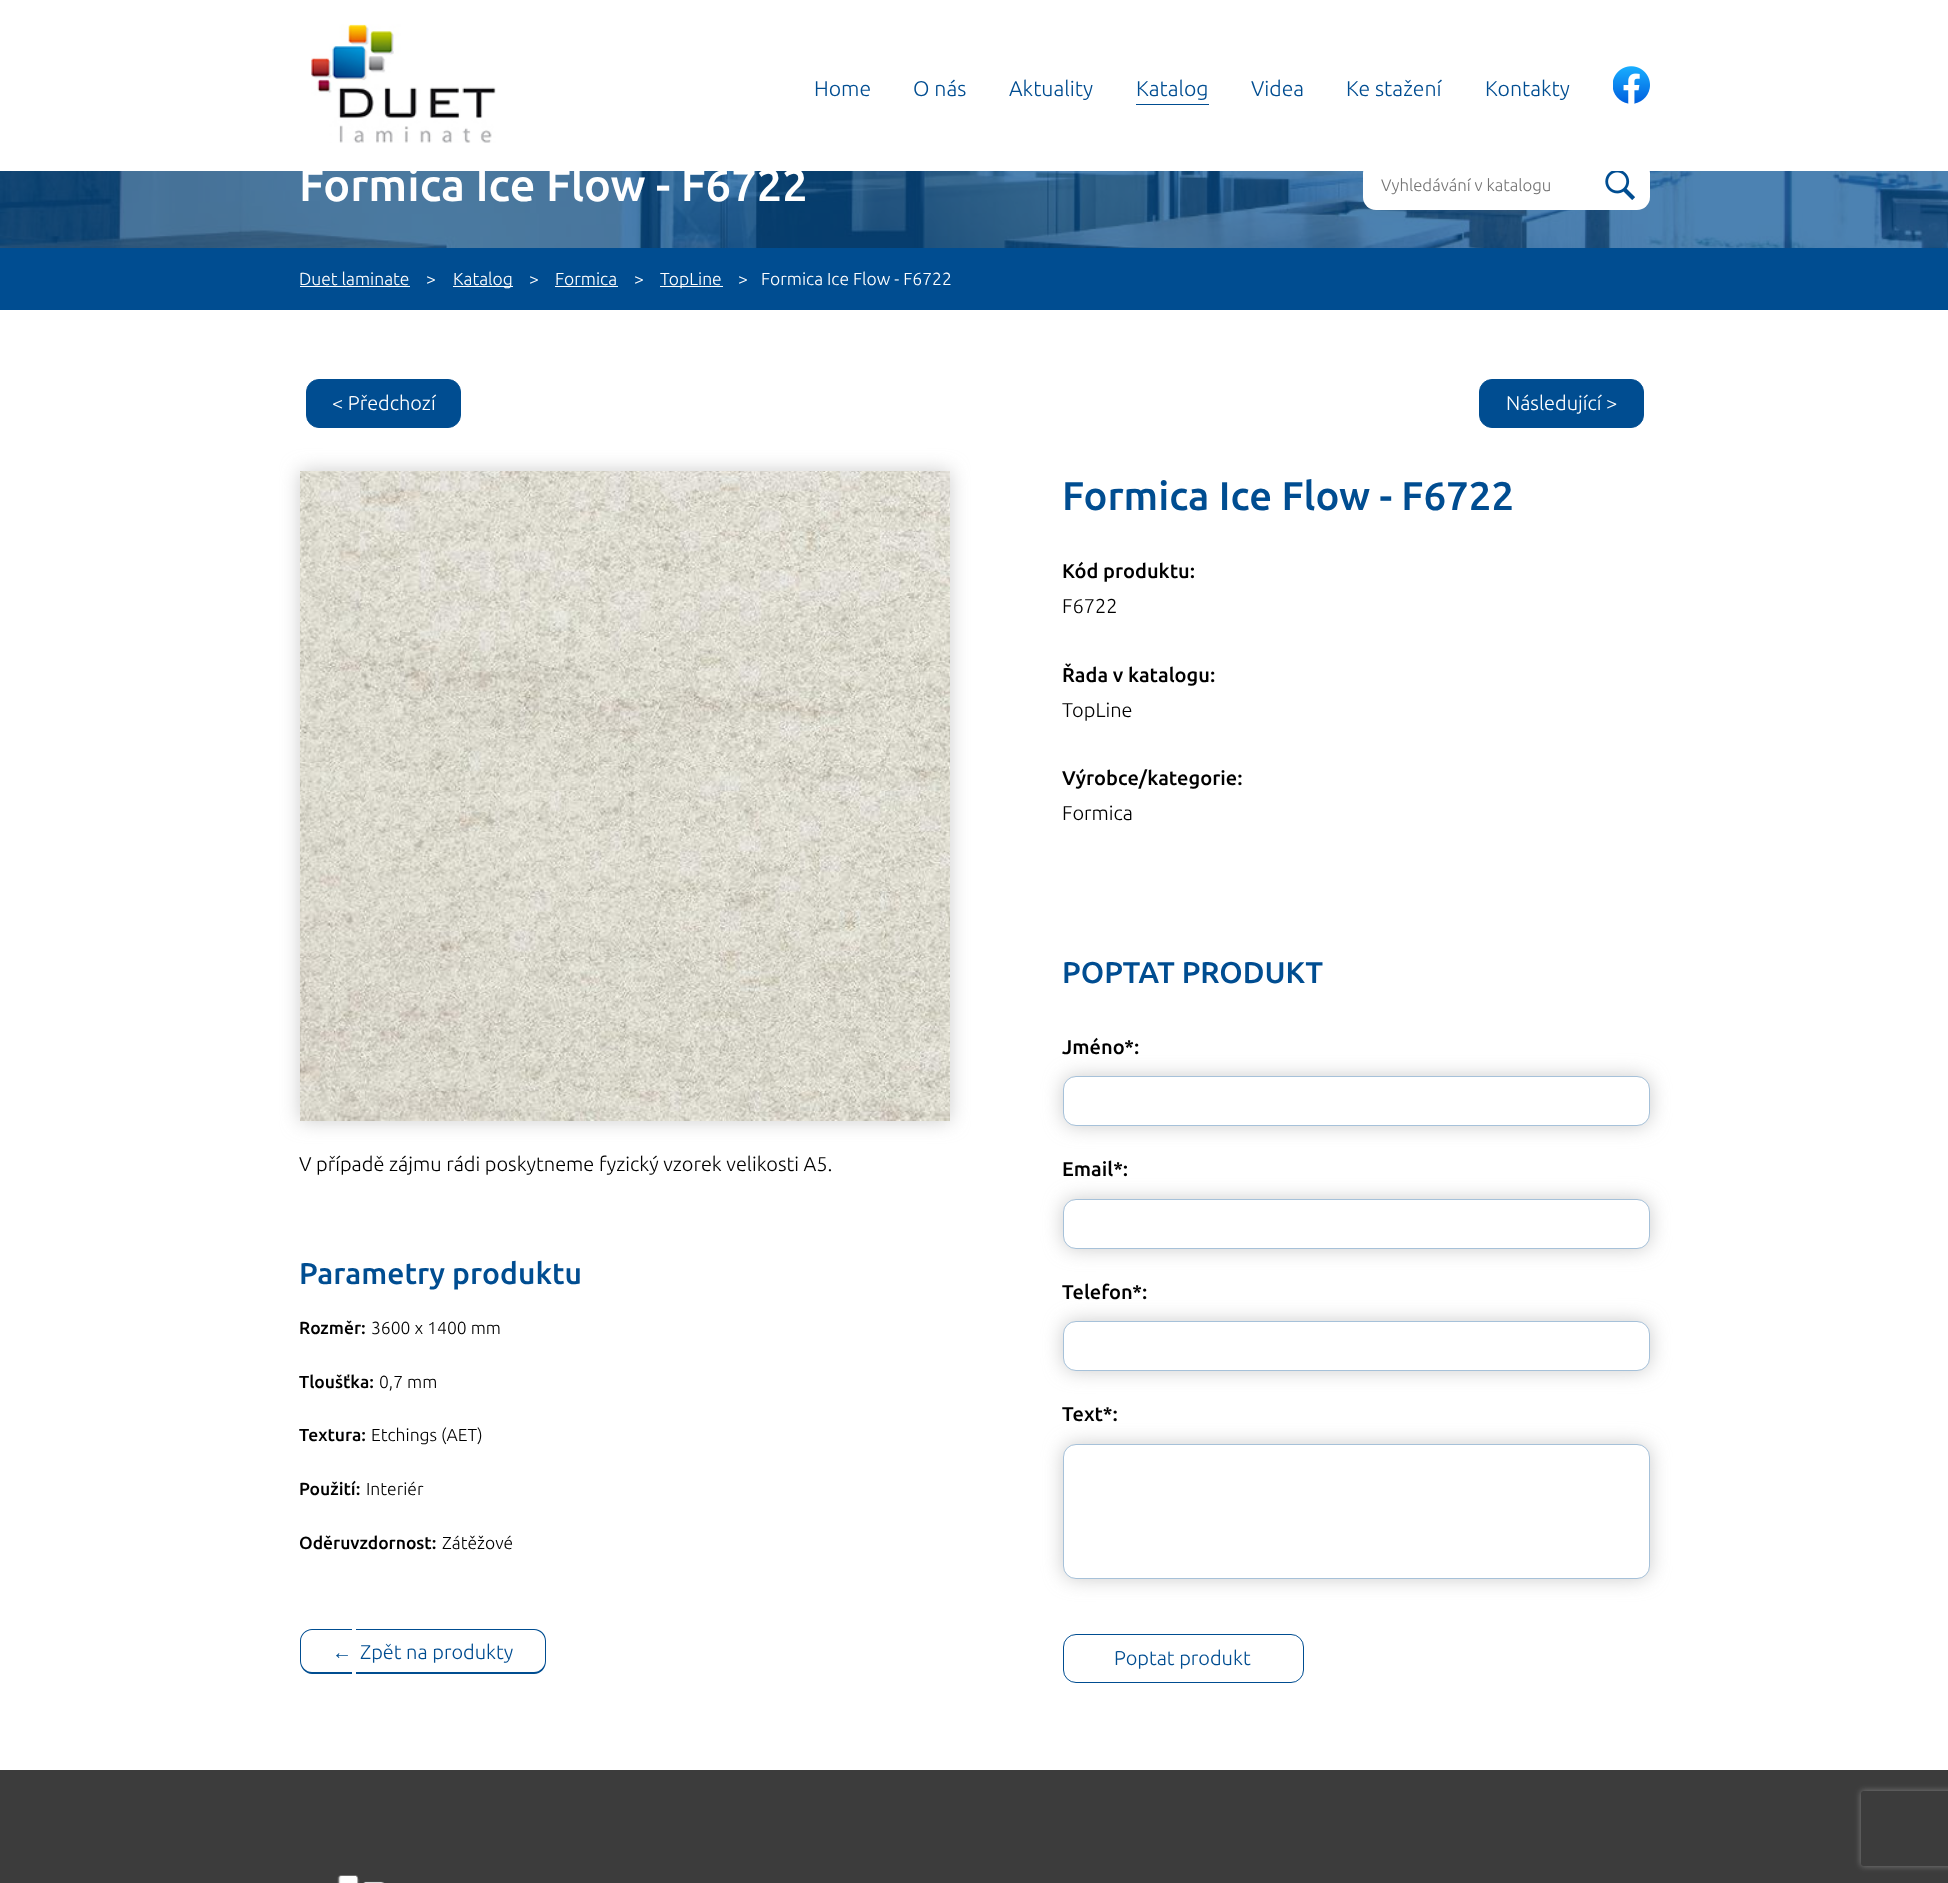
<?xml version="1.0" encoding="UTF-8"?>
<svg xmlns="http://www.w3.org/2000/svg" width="1948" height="1883">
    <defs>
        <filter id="blur1" x="-50%" y="-200%" width="200%" height="500%"><feGaussianBlur stdDeviation="9.5"/></filter>
        <clipPath id="clip1"><path d="M 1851 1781 H 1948 V 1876 H 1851 Z M 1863.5 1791 H 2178.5 C 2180 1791 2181 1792 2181 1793.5 V 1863.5 C 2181 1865 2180 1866 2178.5 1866 H 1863.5 C 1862 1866 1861 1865 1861 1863.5 V 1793.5 C 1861 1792 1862 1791 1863.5 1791 Z" clip-rule="evenodd"/></clipPath>
        <filter id="blur2" x="-50%" y="-200%" width="200%" height="500%"><feGaussianBlur stdDeviation="3"/></filter>
    </defs>
    <rect width="100%" height="100%" fill="#FFFFFF"/>
    <image x="311" y="24" width="185" height="119" href="img_01.png"/>
    <text x="814" y="96" font-family="Ubuntu" font-size="21.25" font-weight="300" fill="#004D91">Home</text>
    <text x="913" y="96" font-family="Ubuntu" font-size="21.25" font-weight="300" fill="#004D91">O nás</text>
    <text x="1009" y="96" font-family="Ubuntu" font-size="21.25" font-weight="300" fill="#004D91">Aktuality</text>
    <rect x="1136" y="104" width="73" height="1" fill="#004D91"/>
    <text x="1136" y="96" font-family="Ubuntu" font-size="21.25" font-weight="300" fill="#004D91">Katalog</text>
    <text x="1251" y="96" font-family="Ubuntu" font-size="21.25" font-weight="300" fill="#004D91">Videa</text>
    <text x="1346" y="96" font-family="Ubuntu" font-size="21.25" font-weight="300" fill="#004D91">Ke stažení</text>
    <text x="1485" y="96" font-family="Ubuntu" font-size="21.25" font-weight="300" fill="#004D91">Kontakty</text>
    <image x="1613" y="66" width="37" height="38" href="img_02.png"/>
    <image x="0" y="171" width="1948" height="77" href="img_03.png"/>
    <rect x="0" y="171" width="1948" height="77" fill="#004D91" fill-opacity="0.7"/>
    <text x="299" y="201" font-family="Ubuntu" font-size="45" font-weight="500" fill="#FFFFFF">Formica Ice Flow - F6722</text>
    <rect x="1363" y="160" width="287" height="50" rx="13" fill="#FFFFFF"/>
    <text x="1381" y="191" font-family="Ubuntu" font-size="16.75" font-weight="300" fill="#757575">Vyhledávání v katalogu</text>
    <image x="1605" y="171" width="30" height="29" href="img_04.png"/>
    <rect x="0" y="248" width="1948" height="62" fill="#004D91"/>
    <text x="299" y="285" font-family="Ubuntu" font-size="17.5" font-weight="300" fill="#FFFFFF">Duet laminate</text>
    <rect x="300" y="286" width="110" height="1" fill="#FFFFFF"/>
    <text x="426" y="285" font-family="Ubuntu" font-size="17.5" font-weight="300" fill="#FFFFFF">&gt;</text>
    <rect x="453" y="286" width="60" height="1" fill="#FFFFFF"/>
    <text x="453" y="285" font-family="Ubuntu" font-size="17.5" font-weight="300" fill="#FFFFFF">Katalog</text>
    <text x="529" y="285" font-family="Ubuntu" font-size="17.5" font-weight="300" fill="#FFFFFF">&gt;</text>
    <text x="555" y="285" font-family="Ubuntu" font-size="17.5" font-weight="300" fill="#FFFFFF">Formica</text>
    <rect x="555" y="286" width="63" height="1" fill="#FFFFFF"/>
    <text x="634" y="285" font-family="Ubuntu" font-size="17.5" font-weight="300" fill="#FFFFFF">&gt;</text>
    <rect x="660" y="286" width="63" height="1" fill="#FFFFFF"/>
    <text x="660" y="285" font-family="Ubuntu" font-size="17.5" font-weight="300" fill="#FFFFFF">TopLine</text>
    <text x="738" y="285" font-family="Ubuntu" font-size="17.5" font-weight="300" fill="#FFFFFF">&gt;</text>
    <text x="761" y="285" font-family="Ubuntu" font-size="17.5" font-weight="300" fill="#FFFFFF">Formica Ice Flow - F6722</text>
    <rect x="306.5" y="379.5" width="154" height="48" rx="12.5" fill="#004D91" stroke="#004D91"/>
    <text x="332" y="410" font-family="Ubuntu" font-size="20" font-weight="300" fill="#FFFFFF">&lt; Předchozí</text>
    <rect x="1479.5" y="379.5" width="164" height="48" rx="12.5" fill="#004D91" stroke="#004D91"/>
    <text x="1506" y="410" font-family="Ubuntu" font-size="20" font-weight="300" fill="#FFFFFF">Následující &gt;</text>
    <rect x="300" y="471" width="650" height="650" fill="#CCCCCC" filter="url(#blur1)"/>
    <image x="300" y="471" width="650" height="650" href="img_05.png"/>
    <text x="299" y="1171" font-family="Ubuntu" font-size="20" font-weight="300" fill="#000000">V případě zájmu rádi poskytneme fyzický vzorek velikosti A5.</text>
    <text x="299" y="1284" font-family="Ubuntu" font-size="30" font-weight="500" fill="#004D91">Parametry produktu</text>
    <text x="299" y="1334" font-family="Ubuntu" font-size="17.5" font-weight="500" fill="#000000">Rozměr:</text>
    <text x="371" y="1334" font-family="Ubuntu" font-size="17.5" font-weight="300" fill="#000000">3600 x 1400 mm</text>
    <text x="299" y="1388" font-family="Ubuntu" font-size="17.5" font-weight="500" fill="#000000">Tloušťka:</text>
    <text x="379" y="1388" font-family="Ubuntu" font-size="17.5" font-weight="300" fill="#000000">0,7 mm</text>
    <text x="299" y="1441" font-family="Ubuntu" font-size="17.5" font-weight="500" fill="#000000">Textura:</text>
    <text x="371" y="1441" font-family="Ubuntu" font-size="17.5" font-weight="300" fill="#000000">Etchings (AET)</text>
    <text x="299" y="1495" font-family="Ubuntu" font-size="17.5" font-weight="500" fill="#000000">Použití:</text>
    <text x="366" y="1495" font-family="Ubuntu" font-size="17.5" font-weight="300" fill="#000000">Interiér</text>
    <text x="299" y="1549" font-family="Ubuntu" font-size="17.5" font-weight="500" fill="#000000">Oděruvzdornost:</text>
    <text x="442" y="1549" font-family="Ubuntu" font-size="17.5" font-weight="300" fill="#000000">Zátěžové</text>
    <path d="M 312 1629 H 352 V 1674 H 312 C 306 1674 300 1668 300 1661 V 1641 C 300 1634 306 1629 312 1629 Z M 312 1630 H 352 V 1672 H 312 C 306 1672 301 1667 301 1661 V 1641 C 301 1635 306 1630 312 1630 Z" fill="#004D91" fill-rule="evenodd"/>
    <text x="332" y="1659" font-family="Liberation Sans" font-size="20" fill="#004D91">←</text>
    <path d="M 356 1629 H 534 C 541 1629 546 1634 546 1641 V 1661 C 546 1668 541 1674 534 1674 H 356 Z M 356 1630 H 534 C 540 1630 545 1635 545 1641 V 1661 C 545 1667 540 1672 534 1672 H 356 Z" fill="#004D91" fill-rule="evenodd"/>
    <text x="360" y="1659" font-family="Ubuntu" font-size="20" font-weight="300" fill="#004D91">Zpět na produkty</text>
    <text x="1062" y="510" font-family="Ubuntu" font-size="40" font-weight="500" fill="#004D91">Formica Ice Flow - F6722</text>
    <text x="1062" y="578" font-family="Ubuntu" font-size="20" font-weight="500" fill="#000000">Kód produktu:</text>
    <text x="1062" y="613" font-family="Ubuntu" font-size="20" font-weight="300" fill="#000000">F6722</text>
    <text x="1062" y="682" font-family="Ubuntu" font-size="20" font-weight="500" fill="#000000">Řada v katalogu:</text>
    <text x="1062" y="717" font-family="Ubuntu" font-size="20" font-weight="300" fill="#000000">TopLine</text>
    <text x="1062" y="785" font-family="Ubuntu" font-size="20" font-weight="500" fill="#000000">Výrobce/kategorie:</text>
    <text x="1062" y="820" font-family="Ubuntu" font-size="20" font-weight="300" fill="#000000">Formica</text>
    <text x="1062" y="983" font-family="Ubuntu" font-size="30" font-weight="500" fill="#004D91">POPTAT PRODUKT</text>
    <text x="1062" y="1054" font-family="Ubuntu" font-size="20" font-weight="500" fill="#000000">Jméno*:</text>
    <rect x="1063" y="1076" width="587" height="50" rx="13" fill="#CCCCCC" filter="url(#blur1)"/>
    <rect x="1063.5" y="1076.5" width="586" height="49" rx="12.5" fill="#FFFFFF" stroke="#A6C1D9"/>
    <text x="1062" y="1176" font-family="Ubuntu" font-size="20" font-weight="500" fill="#000000">Email*:</text>
    <rect x="1063" y="1199" width="587" height="50" rx="13" fill="#CCCCCC" filter="url(#blur1)"/>
    <rect x="1063.5" y="1199.5" width="586" height="49" rx="12.5" fill="#FFFFFF" stroke="#A6C1D9"/>
    <text x="1062" y="1299" font-family="Ubuntu" font-size="20" font-weight="500" fill="#000000">Telefon*:</text>
    <rect x="1063" y="1321" width="587" height="50" rx="13" fill="#CCCCCC" filter="url(#blur1)"/>
    <rect x="1063.5" y="1321.5" width="586" height="49" rx="12.5" fill="#FFFFFF" stroke="#A6C1D9"/>
    <text x="1062" y="1421" font-family="Ubuntu" font-size="20" font-weight="500" fill="#000000">Text*:</text>
    <rect x="1063" y="1444" width="587" height="135" rx="13" fill="#CCCCCC" filter="url(#blur1)"/>
    <rect x="1063.5" y="1444.5" width="586" height="134" rx="12.5" fill="#FFFFFF" stroke="#A6C1D9"/>
    <rect x="1063.5" y="1634.5" width="240" height="48" rx="12.5" fill="none" stroke="#004D91"/>
    <text x="1114" y="1665" font-family="Ubuntu" font-size="20" font-weight="300" fill="#004D91">Poptat produkt</text>
    <rect x="0" y="1770" width="1948" height="113" fill="#3C3C3C"/>
    <image x="337" y="1875" width="48" height="8" href="img_06.png"/>
    <g clip-path="url(#clip1)">
        <rect x="1861" y="1791" width="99" height="75" rx="2.5" fill="#808080" filter="url(#blur2)"/>
    </g>
</svg>
